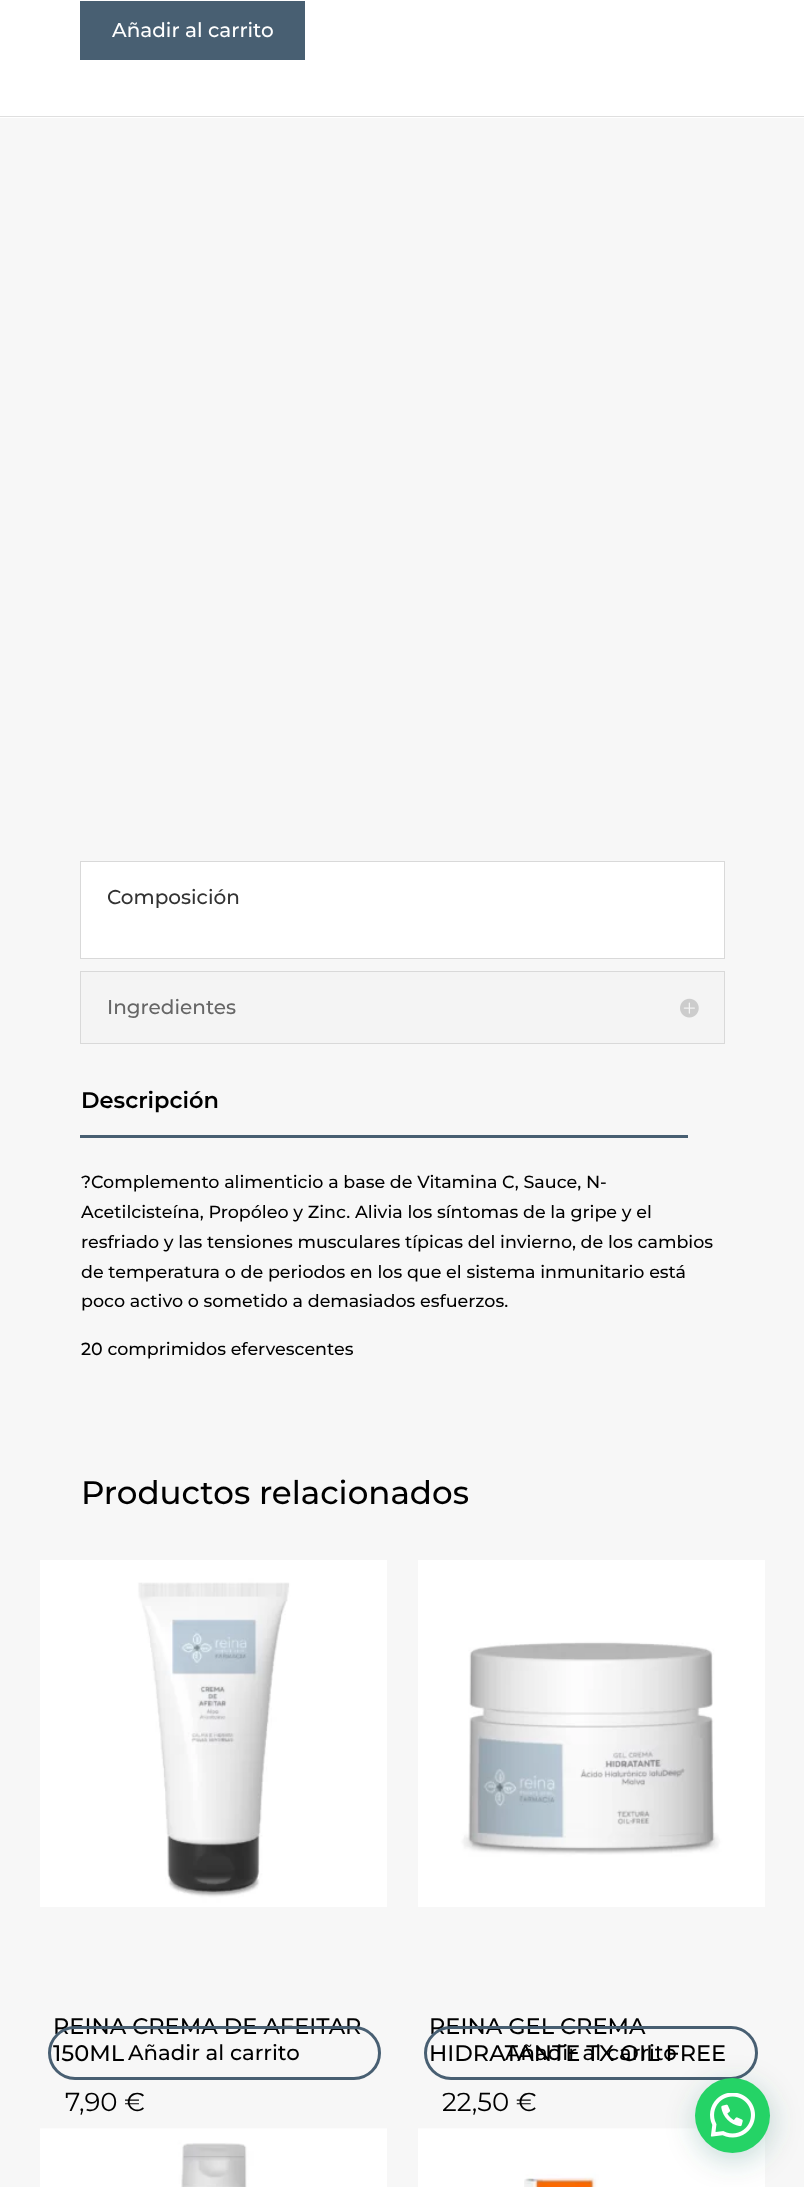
<?xml version="1.0" encoding="UTF-8"?>
<svg xmlns="http://www.w3.org/2000/svg" width="804" height="2187">
    <defs>
        <filter id="blur1" x="-50%" y="-200%" width="200%" height="500%"><feGaussianBlur stdDeviation="15"/></filter>
    </defs>
    <rect width="100%" height="100%" fill="#FFFFFF"/>
    <rect x="0" y="116" width="804" height="1" fill="#DFDFDF"/>
    <rect x="80" y="1" width="225" height="59" fill="#485F72"/>
    <text x="112" y="37" font-family="Montserrat" font-size="20" font-weight="100" fill="#FFFFFF">Añadir al carrito</text>
    <rect x="0" y="118" width="804" height="2069" fill="#F7F7F7"/>
    <rect x="80.5" y="861.5" width="644" height="97" fill="#FFFFFF" stroke="#D9D9D9"/>
    <text x="107" y="904" font-family="Montserrat" font-size="20" font-weight="100" fill="#333333">Composición</text>
    <rect x="80.5" y="971.5" width="644" height="72" fill="#F4F4F4" stroke="#D9D9D9"/>
    <text x="107" y="1014" font-family="Montserrat" font-size="20" font-weight="100" fill="#666666">Ingredientes</text>
    <image x="680" y="998" width="19" height="20" href="img_01.png"/>
    <rect x="80" y="1135" width="608" height="3" fill="#485F72"/>
    <text x="81" y="1108" font-family="'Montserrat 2'" font-size="22.5" font-weight="100" fill="#000000">Descripción</text>
    <text font-family="Montserrat" font-size="17.5" font-weight="100" fill="#000000">
        <tspan x="81" y="1188">?Complemento alimenticio a base de Vitamina C, Sauce, N-</tspan>
        <tspan x="81" y="1218">Acetilcisteína, Propóleo y Zinc. Alivia los síntomas de la gripe y el</tspan>
        <tspan x="81" y="1248">resfriado y las tensiones musculares típicas del invierno, de los cambios</tspan>
        <tspan x="81" y="1278">de temperatura o de periodos en los que el sistema inmunitario está</tspan>
        <tspan x="81" y="1307">poco activo o sometido a demasiados esfuerzos.</tspan>
    </text>
    <text x="81" y="1355" font-family="Montserrat" font-size="17.5" font-weight="100" fill="#000000">20 comprimidos efervescentes</text>
    <text x="81" y="1504" font-family="Montserrat" font-size="32.5" font-weight="100" fill="#000000">Productos relacionados</text>
    <image x="40" y="1560" width="347" height="347" href="img_02.png"/>
    <text font-family="Montserrat" font-size="22.5" font-weight="100" fill="#000000">
        <tspan x="53" y="2034">REINA CREMA DE AFEITAR</tspan>
        <tspan x="53" y="2061">150ML</tspan>
    </text>
    <text x="65" y="2111" font-family="'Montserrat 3'" font-size="26" font-weight="100" fill="#000000">7,90 €</text>
    <rect x="49.5" y="2027.5" width="330" height="51" rx="25.5" fill="none" stroke="#485F72" stroke-width="3"/>
    <text x="128" y="2060" font-family="Montserrat" font-size="21.25" font-weight="100" fill="#000000">Añadir al carrito</text>
    <image x="418" y="1560" width="347" height="347" href="img_03.png"/>
    <text font-family="Montserrat" font-size="22.5" font-weight="100" fill="#000000">
        <tspan x="429" y="2034">REINA GEL CREMA</tspan>
        <tspan x="429" y="2061">HIDRATANTE TX OIL FREE</tspan>
    </text>
    <text x="442" y="2111" font-family="'Montserrat 3'" font-size="26" font-weight="100" fill="#000000">22,50 €</text>
    <rect x="425.5" y="2027.5" width="331" height="51" rx="25.5" fill="none" stroke="#485F72" stroke-width="3"/>
    <text x="505" y="2060" font-family="Montserrat" font-size="21.25" font-weight="100" fill="#000000">Añadir al carrito</text>
    <image x="40" y="2128" width="347" height="59" href="img_04.png"/>
    <image x="418" y="2128" width="347" height="59" href="img_05.png"/>
    <rect x="696" y="2085" width="75" height="75" rx="37.5" fill="#075E54" fill-opacity="0.24" filter="url(#blur1)"/>
    <circle cx="732.5" cy="2115.5" r="37.5" fill="#25D366"/>
    <image x="710" y="2093" width="45" height="45" href="img_06.png"/>
</svg>
